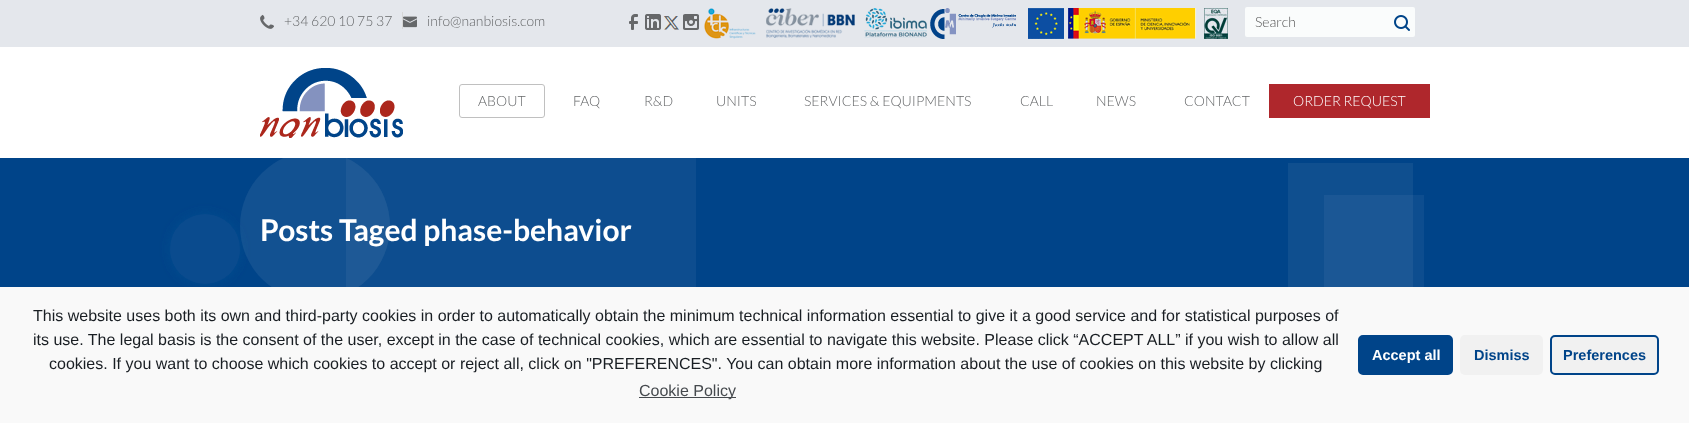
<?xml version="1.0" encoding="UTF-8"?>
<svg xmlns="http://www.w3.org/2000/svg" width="1689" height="423">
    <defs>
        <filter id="blur1" x="-50%" y="-200%" width="200%" height="500%"><feGaussianBlur stdDeviation="5"/></filter>
        <clipPath id="clip1"><rect x="0" y="158" width="1689" height="154"/></clipPath>
    </defs>
    <rect width="100%" height="100%" fill="#FFFFFF"/>
    <rect x="0" y="0" width="1689" height="47" fill="#E4E7EC"/>
    <image x="260" y="14" width="14" height="15" href="img_01.png"/>
    <text x="284" y="26" font-family="Lato" font-size="14" font-weight="300" fill="#66686A">+34 620 10 75 37</text>
    <rect x="402" y="12" width="1" height="17" fill="#D6D6D6"/>
    <image x="403" y="16" width="14" height="12" href="img_02.png"/>
    <text x="427" y="26" font-family="Lato" font-size="14" font-weight="300" fill="#66686A">info@nanbiosis.com</text>
    <image x="629" y="14" width="9" height="16" href="img_03.png"/>
    <image x="645" y="14" width="16" height="16" href="img_04.png"/>
    <image x="664" y="16" width="15" height="14" href="img_05.png"/>
    <text x="683" y="29" font-family="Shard" font-size="16" fill="#66686A">0</text>
    <image x="704" y="8" width="52" height="31" href="img_06.png"/>
    <image x="766" y="8" width="89" height="30" href="img_07.png"/>
    <image x="864" y="8" width="63" height="30" href="img_08.png"/>
    <image x="930" y="8" width="86" height="31" href="img_09.png"/>
    <image x="1028" y="8" width="36" height="31" href="img_10.png"/>
    <image x="1068" y="8" width="128" height="31" href="img_11.png"/>
    <image x="1204" y="8" width="24" height="31" href="img_12.png"/>
    <rect x="1245" y="7" width="170" height="30" rx="2" fill="#FAFCFC"/>
    <text x="1255" y="27" font-family="Lato" font-size="14" font-weight="300" fill="#555555">Search</text>
    <image x="1394" y="15" width="16" height="16" href="img_13.png"/>
    <image x="260" y="68" width="143" height="70" href="img_14.png"/>
    <rect x="459.5" y="84.5" width="85" height="33" rx="2.5" fill="none" stroke="#C0C0C0"/>
    <text x="478" y="106" font-family="Lato" font-size="14" font-weight="300" fill="#66686A">ABOUT</text>
    <text x="573" y="106" font-family="Lato" font-size="14" font-weight="300" fill="#66686A">FAQ</text>
    <text x="644" y="106" font-family="Lato" font-size="14" font-weight="300" fill="#66686A">R&amp;D</text>
    <text x="716" y="106" font-family="Lato" font-size="14" font-weight="300" fill="#66686A">UNITS</text>
    <text x="804" y="106" font-family="Lato" font-size="14" font-weight="300" fill="#66686A">SERVICES &amp; EQUIPMENTS</text>
    <text x="1020" y="106" font-family="Lato" font-size="14" font-weight="300" fill="#66686A">CALL</text>
    <text x="1096" y="106" font-family="Lato" font-size="14" font-weight="300" fill="#66686A">NEWS</text>
    <text x="1184" y="106" font-family="Lato" font-size="14" font-weight="300" fill="#66686A">CONTACT</text>
    <rect x="1269" y="84" width="161" height="34" fill="#AF272C"/>
    <text x="1293" y="106" font-family="Lato" font-size="14" font-weight="300" fill="#FFFFFF">ORDER REQUEST</text>
    <rect x="0" y="158" width="1689" height="129" fill="#004489"/>
    <rect x="170" y="214" width="70" height="70" rx="35" fill="#0A4B8E" filter="url(#blur1)"/>
    <g clip-path="url(#clip1)">
        <circle cx="315" cy="226" r="75" fill="#FFFFFF" fill-opacity="0.07"/>
    </g>
    <rect x="346" y="158" width="350" height="129" fill="#FFFFFF" fill-opacity="0.05"/>
    <rect x="1324" y="195" width="100" height="92" fill="#FFFFFF" fill-opacity="0.05"/>
    <rect x="1288" y="163" width="125" height="124" fill="#FFFFFF" fill-opacity="0.06"/>
    <circle cx="205" cy="249" r="35" fill="#0A4B8E"/>
    <text x="260" y="241" font-family="Lato" font-size="30" font-weight="700" fill="#FFFFFF">Posts Taged phase-behavior</text>
    <rect x="0" y="287" width="1689" height="136" fill="#F9F9F9"/>
    <text font-family="Liberation Sans" font-size="16" fill="#191E23">
        <tspan x="33" y="321">This website uses both its own and third-party cookies in order to automatically obtain the minimum technical information essential to give it a good service and for statistical purposes of</tspan>
        <tspan x="33" y="345">its use. The legal basis is the consent of the user, except in the case of technical cookies, which are essential to navigate this website. Please click “ACCEPT ALL” if you wish to allow all</tspan>
    </text>
    <text x="49" y="369" font-family="Liberation Sans" font-size="16" fill="#191E23">cookies. If you want to choose which cookies to accept or reject all, click on "PREFERENCES". You can obtain more information about the use of cookies on this website by clicking</text>
    <rect x="639" y="397" width="97" height="1" fill="#464A4E"/>
    <text x="639" y="396" font-family="Liberation Sans" font-size="16" fill="#464A4E">Cookie Policy</text>
    <rect x="1359" y="336" width="93" height="38" rx="4" fill="#004489" stroke="#004489" stroke-width="2"/>
    <text x="1372" y="360" font-family="Liberation Sans" font-size="14.5" font-weight="700" fill="#FFFFFF">Accept all</text>
    <rect x="1460" y="335" width="83" height="40" rx="5" fill="#F1F1F1"/>
    <text x="1474" y="360" font-family="Liberation Sans" font-size="14.5" font-weight="700" fill="#004489">Dismiss</text>
    <rect x="1551" y="336" width="107" height="38" rx="4" fill="#F1F1F1" stroke="#004489" stroke-width="2"/>
    <text x="1563" y="360" font-family="Liberation Sans" font-size="14.5" font-weight="700" fill="#004489">Preferences</text>
</svg>
